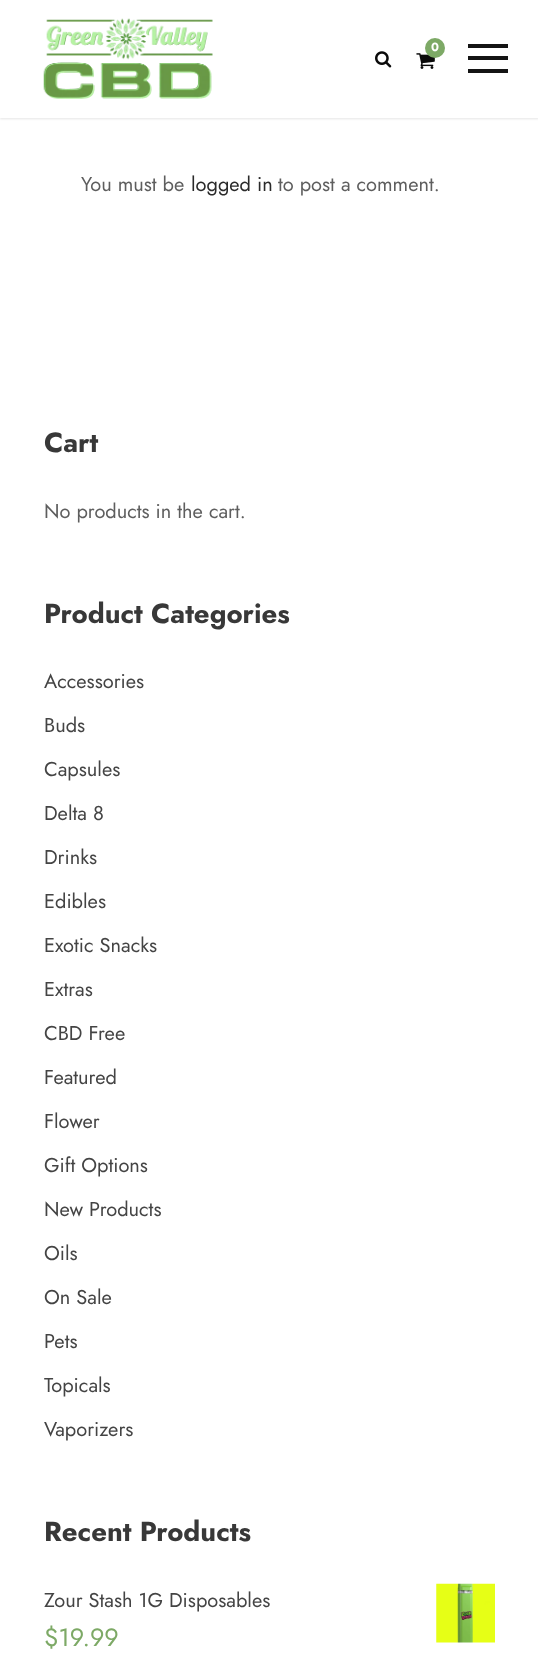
<?xml version="1.0" encoding="UTF-8"?>
<svg xmlns="http://www.w3.org/2000/svg" width="538" height="1678">
    <defs>
        <filter id="blur1" x="-50%" y="-200%" width="200%" height="500%"><feGaussianBlur stdDeviation="1"/></filter>
    </defs>
    <rect width="100%" height="100%" fill="#FFFFFF"/>
    <rect x="0" y="1" width="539" height="118" fill="#000000" fill-opacity="0.1" filter="url(#blur1)"/>
    <rect x="0" y="0" width="538" height="118" fill="#FFFFFF"/>
    <image x="43" y="18" width="170" height="81" href="img_01.png"/>
    <image x="375" y="51" width="17" height="17" href="img_02.png"/>
    <image x="416" y="53" width="19" height="16" href="img_03.png"/>
    <circle cx="435" cy="48" r="10" fill="#7DA966"/>
    <text x="431" y="51" font-family="Jost" font-size="12" font-weight="700" fill="#FFFFFF">0</text>
    <rect x="468" y="44" width="40" height="4" fill="#141414"/>
    <rect x="468" y="56" width="40" height="4" fill="#141414"/>
    <rect x="468" y="69" width="40" height="4" fill="#141414"/>
    <text x="81" y="191" font-family="Jost" font-size="20" fill="#5E5E5E">You must be</text>
    <text x="191" y="191" font-family="Jost" font-size="20" fill="#2A2A2A">logged in</text>
    <text x="278" y="191" font-family="Jost" font-size="20" fill="#5E5E5E">to post a comment.</text>
    <text x="44" y="452" font-family="Jost" font-size="27.5" font-weight="700" fill="#383838">Cart</text>
    <text x="44" y="518" font-family="Jost" font-size="20" fill="#5E5E5E">No products in the cart.</text>
    <text x="44" y="623" font-family="Jost" font-size="27.5" font-weight="700" fill="#383838">Product Categories</text>
    <text x="44" y="688" font-family="Jost" font-size="20" fill="#444444">Accessories</text>
    <text x="44" y="732" font-family="Jost" font-size="20" fill="#444444">Buds</text>
    <text x="44" y="776" font-family="Jost" font-size="20" fill="#444444">Capsules</text>
    <text x="44" y="820" font-family="Jost" font-size="20" fill="#444444">Delta 8</text>
    <text x="44" y="864" font-family="Jost" font-size="20" fill="#444444">Drinks</text>
    <text x="44" y="908" font-family="Jost" font-size="20" fill="#444444">Edibles</text>
    <text x="44" y="952" font-family="Jost" font-size="20" fill="#444444">Exotic Snacks</text>
    <text x="44" y="996" font-family="Jost" font-size="20" fill="#444444">Extras</text>
    <text x="44" y="1040" font-family="Jost" font-size="20" fill="#444444">CBD Free</text>
    <text x="44" y="1084" font-family="Jost" font-size="20" fill="#444444">Featured</text>
    <text x="44" y="1128" font-family="Jost" font-size="20" fill="#444444">Flower</text>
    <text x="44" y="1172" font-family="Jost" font-size="20" fill="#444444">Gift Options</text>
    <text x="44" y="1216" font-family="Jost" font-size="20" fill="#444444">New Products</text>
    <text x="44" y="1260" font-family="Jost" font-size="20" fill="#444444">Oils</text>
    <text x="44" y="1304" font-family="Jost" font-size="20" fill="#444444">On Sale</text>
    <text x="44" y="1348" font-family="Jost" font-size="20" fill="#444444">Pets</text>
    <text x="44" y="1392" font-family="Jost" font-size="20" fill="#444444">Topicals</text>
    <text x="44" y="1436" font-family="Jost" font-size="20" fill="#444444">Vaporizers</text>
    <text x="44" y="1541" font-family="Jost" font-size="27.5" font-weight="700" fill="#383838">Recent Products</text>
    <text x="44" y="1607" font-family="Jost" font-size="20" fill="#444444">Zour Stash 1G Disposables</text>
    <image x="436" y="1583" width="59" height="60" href="img_04.png"/>
    <text x="44" y="1646" font-family="Jost" font-size="25" fill="#7DA966">$19.99</text>
</svg>
